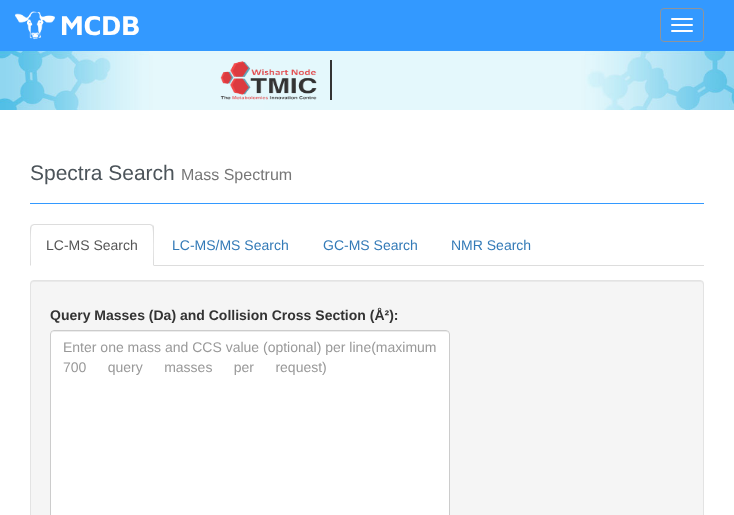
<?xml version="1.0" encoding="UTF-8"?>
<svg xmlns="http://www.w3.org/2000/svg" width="734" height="515">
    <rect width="100%" height="100%" fill="#FFFFFF"/>
    <rect x="0" y="0" width="734" height="51" fill="#3399FF"/>
    <image x="15" y="11" width="40" height="29" href="img_01.png"/>
    <text x="60" y="35" font-family="Maven Pro" font-size="28" font-weight="700" fill="#FFFFFF">MCDB</text>
    <rect x="660.5" y="8.5" width="43" height="33" rx="3.5" fill="none" stroke="#8F949B"/>
    <rect x="671" y="18" width="22" height="2" rx="1" fill="#FFFFFF"/>
    <rect x="671" y="24" width="22" height="2" rx="1" fill="#FFFFFF"/>
    <rect x="671" y="30" width="22" height="2" rx="1" fill="#FFFFFF"/>
    <rect x="264" y="51" width="206" height="59" fill="#E4F8FC"/>
    <image x="0" y="51" width="734" height="59" href="img_02.png"/>
    <image x="220" y="61" width="97" height="39" href="img_03.png"/>
    <rect x="330" y="60" width="2" height="40" fill="#343433"/>
    <rect x="30" y="203" width="674" height="1" fill="#3399FF"/>
    <text x="30" y="180" font-family="Liberation Sans" font-size="21" fill="#4C545A">Spectra Search</text>
    <text x="181" y="180" font-family="Liberation Sans" font-size="16" fill="#777777">Mass Spectrum</text>
    <rect x="154" y="265" width="550" height="1" fill="#DDDDDD"/>
    <path d="M 34 224 L 31 225 L 32 226 L 34 225 H 150 L 152 226 L 153 225 L 150 224 Z" fill="#DDDDDD"/>
    <path d="M 154 266 V 228 C 154 227 154 226 153 225 L 152 226 C 154 228 153 260 153 265 Z" fill="#DDDDDD"/>
    <path d="M 30 266 L 31 265 C 31 260 30 228 32 226 L 31 225 L 30 228 Z" fill="#DDDDDD"/>
    <text x="46" y="250" font-family="Liberation Sans" font-size="14" fill="#555555">LC-MS Search</text>
    <text x="172" y="250" font-family="Liberation Sans" font-size="14" fill="#337AB7">LC-MS/MS Search</text>
    <text x="323" y="250" font-family="Liberation Sans" font-size="14" fill="#337AB7">GC-MS Search</text>
    <text x="451" y="250" font-family="Liberation Sans" font-size="14" fill="#337AB7">NMR Search</text>
    <rect x="30" y="280" width="674" height="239" rx="4" fill="#F5F5F5"/>
    <path d="M 34 282 H 700 C 702 282 703 283 703 285 V 284 C 703 282 702 281 700 281 H 34 C 32 281 31 282 31 284 V 285 C 31 283 32 282 34 282 Z" fill="#E9E9E9"/>
    <rect x="30.5" y="280.5" width="673" height="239" rx="3.5" fill="none" stroke="#E3E3E3"/>
    <text x="50" y="320" font-family="Liberation Sans" font-size="14" font-weight="700" fill="#333333">Query Masses (Da) and Collision Cross Section (Å²):</text>
    <rect x="50" y="330" width="400" height="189" rx="4" fill="#FFFFFF"/>
    <path d="M 54 332 H 446 C 448 332 449 333 449 335 C 449 333 448 331 446 331 H 54 L 52 332 L 51 335 C 51 333 52 332 54 332 Z" fill="#ECECEC"/>
    <rect x="50.5" y="330.5" width="399" height="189" rx="3.5" fill="none" stroke="#CCCCCC"/>
    <text font-family="Liberation Sans" font-size="14" fill="#999999">
        <tspan x="63" y="352">Enter one mass and CCS value (optional) per line(maximum</tspan>
        <tspan x="63" y="372" word-spacing="17.5">700 query masses per request)</tspan>
    </text>
</svg>
